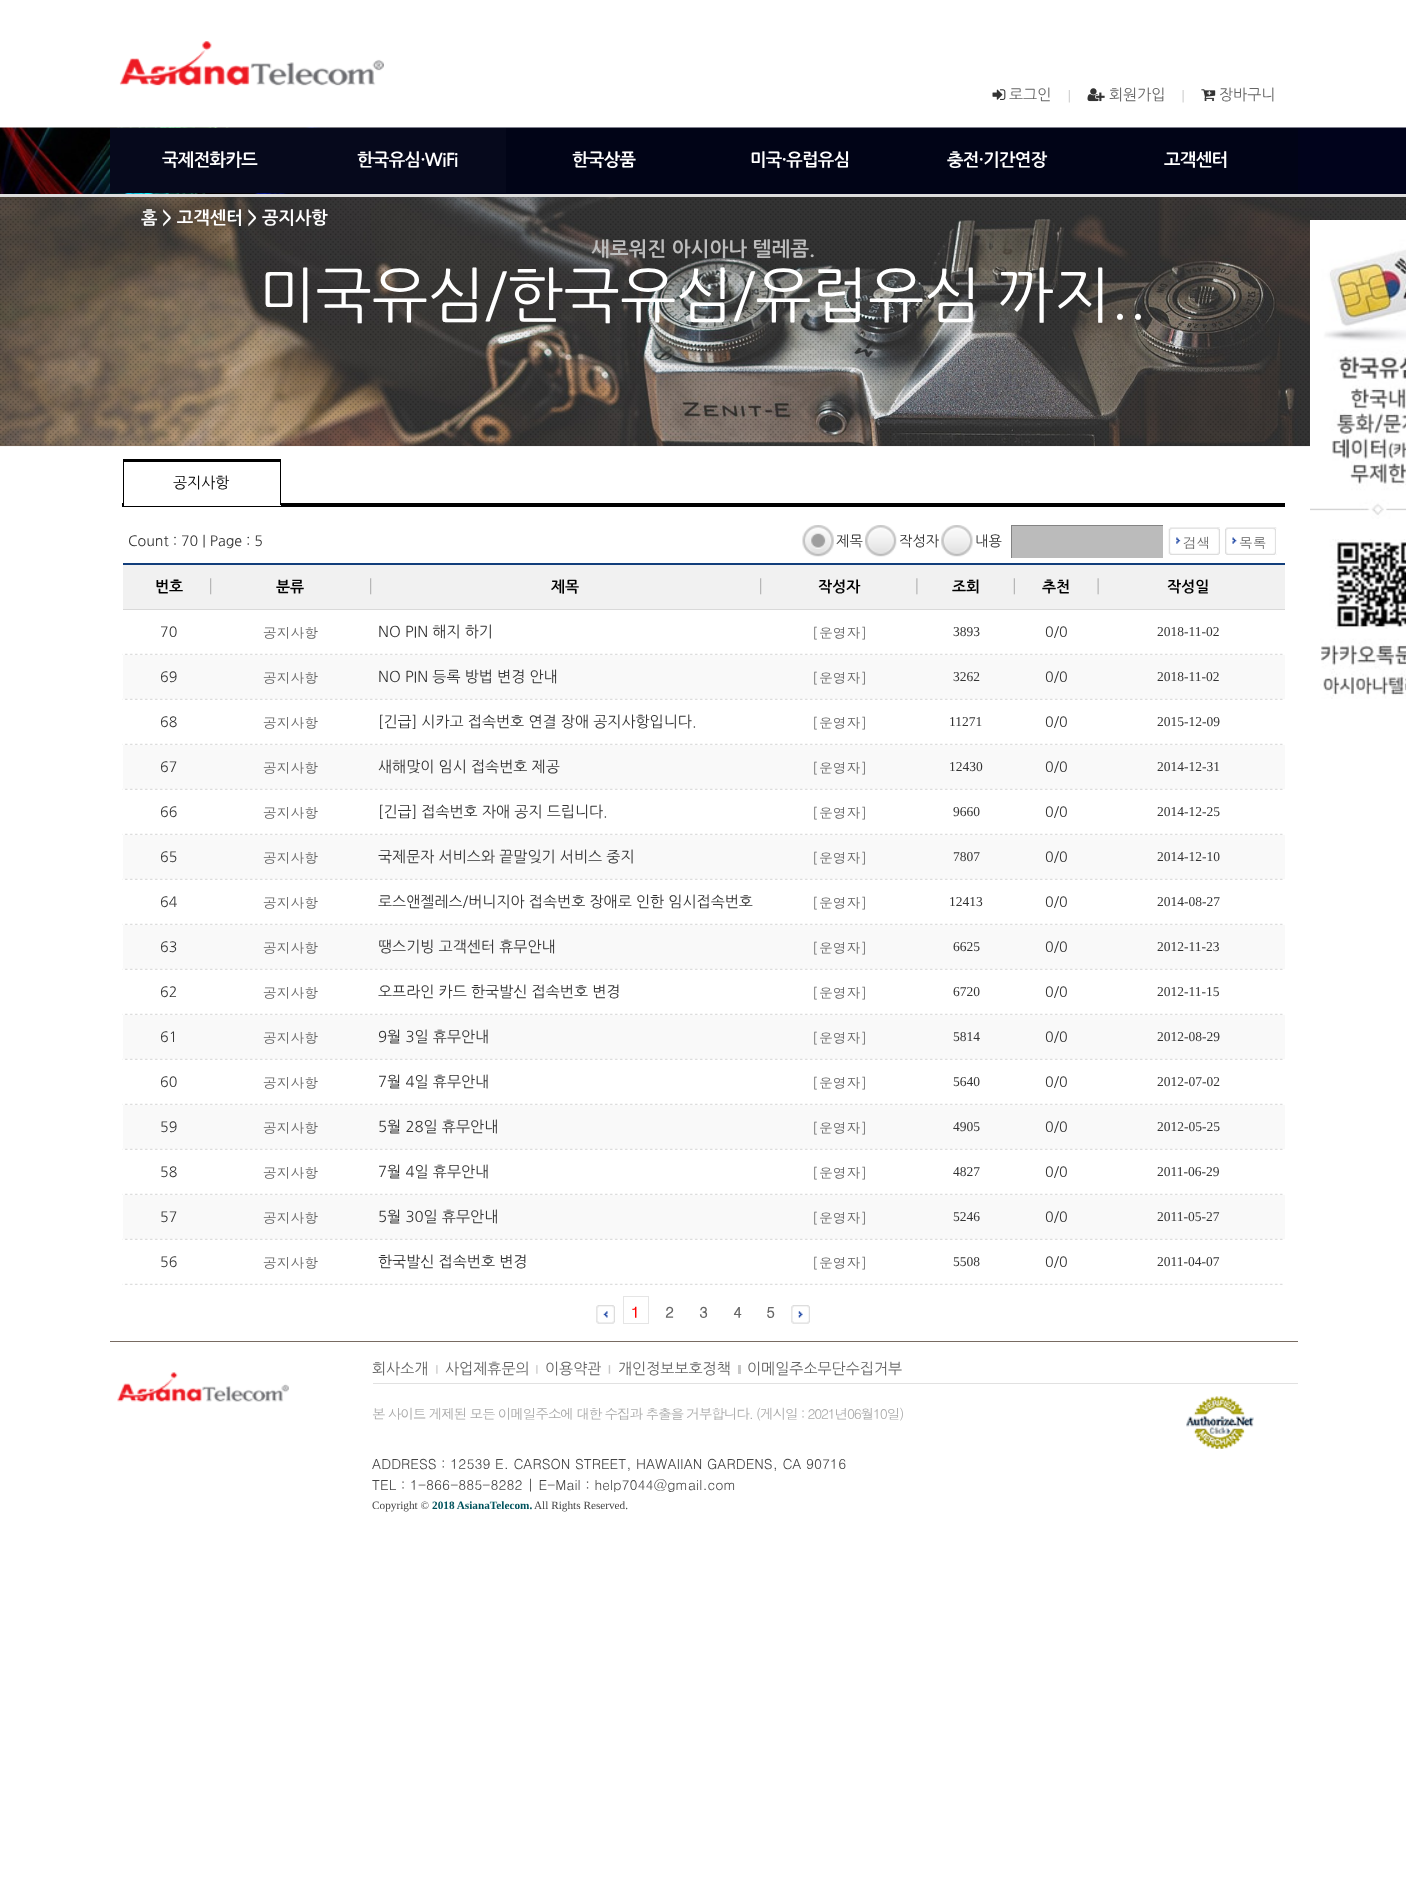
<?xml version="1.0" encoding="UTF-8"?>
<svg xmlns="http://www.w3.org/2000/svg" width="1406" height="1888">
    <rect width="100%" height="100%" fill="#FFFFFF"/>
    <image x="119" y="41" width="265" height="45" href="img_01.png"/>
    <image x="992" y="89" width="14" height="11" href="img_02.png"/>
    <text x="1009" y="100" font-family="NanumGothic" font-size="15" fill="#666666">로그인</text>
    <image x="1068" y="90" width="2" height="13" href="img_03.png"/>
    <image x="1087" y="88" width="18" height="14" href="img_04.png"/>
    <text x="1109" y="100" font-family="NanumGothic" font-size="15" fill="#666666">회원가입</text>
    <image x="1182" y="90" width="2" height="13" href="img_05.png"/>
    <image x="1201" y="89" width="15" height="13" href="img_06.png"/>
    <text x="1219" y="100" font-family="NanumGothic" font-size="15" fill="#666666">장바구니</text>
    <image x="0" y="127" width="1406" height="67" href="img_07.png"/>
    <rect x="110" y="128" width="200" height="65" fill="#FFFFFF" fill-opacity="0.98"/>
    <rect x="110" y="128" width="200" height="65" fill="#010417" fill-opacity="0.98"/>
    <text x="162" y="166" font-family="NanumGothic" font-size="17.5" font-weight="700" letter-spacing="-0.6" fill="#FFFFFF">국제전화카드</text>
    <rect x="310" y="128" width="196" height="65" fill="#06091C"/>
    <text x="357" y="166" font-family="NanumGothic" font-size="17.5" font-weight="700" letter-spacing="-0.6" fill="#FFFFFF">한국유심·WiFi</text>
    <rect x="506" y="128" width="792" height="65" fill="#010417"/>
    <text x="572" y="166" font-family="NanumGothic" font-size="17.5" font-weight="700" letter-spacing="-0.6" fill="#FFFFFF">한국상품</text>
    <text x="750" y="166" font-family="NanumGothic" font-size="17.5" font-weight="700" letter-spacing="-0.6" fill="#FFFFFF">미국·유럽유심</text>
    <text x="947" y="166" font-family="NanumGothic" font-size="17.5" font-weight="700" letter-spacing="-0.6" fill="#FFFFFF">충전·기간연장</text>
    <text x="1164" y="166" font-family="NanumGothic" font-size="17.5" font-weight="700" letter-spacing="-0.6" fill="#FFFFFF">고객센터</text>
    <rect x="0" y="194" width="1406" height="3" fill="#DDDDDD"/>
    <image x="0" y="197" width="1406" height="250" href="img_10.png"/>
    <image x="0" y="197" width="1406" height="249" href="img_11.png"/>
    <image x="1310" y="220" width="96" height="299" href="img_08.png"/>
    <image x="1320" y="539" width="86" height="160" href="img_09.png"/>
    <text x="141" y="224" font-family="NanumGothic" font-size="17.5" font-weight="700" fill="#FFFFFF">홈 &gt; 고객센터 &gt; 공지사항</text>
    <text x="591" y="256" font-family="NanumGothic" font-size="20" font-weight="700" fill="#BDBDBD">새로워진 아시아나 텔레콤.</text>
    <text x="259" y="317" font-family="NanumGothic" font-size="60" fill="#FFFFFF">미국유심/한국유심/유럽유심 까지..</text>
    <rect x="122" y="503" width="1163" height="4" fill="#000000"/>
    <rect x="124" y="503" width="156" height="2" fill="#FFFFFF"/>
    <rect x="123" y="459" width="158" height="3" fill="#000000"/>
    <rect x="280" y="459" width="1" height="47" fill="#000000"/>
    <rect x="123" y="505" width="158" height="1" fill="#FFFFFF"/>
    <rect x="123" y="459" width="1" height="47" fill="#000000"/>
    <text x="173" y="488" font-family="NanumGothic" font-size="15" fill="#000000">공지사항</text>
    <text x="128" y="546" font-family="NanumGothic" font-size="14.25" fill="#333333">Count : 70 | Page : 5</text>
    <image x="802" y="525" width="32" height="32" href="img_12.png"/>
    <text x="836" y="546" font-family="NanumGothic" font-size="14.25" fill="#333333">제목</text>
    <image x="865" y="525" width="32" height="32" href="img_13.png"/>
    <text x="899" y="546" font-family="NanumGothic" font-size="14.25" fill="#333333">작성자</text>
    <image x="941" y="525" width="32" height="32" href="img_14.png"/>
    <text x="975" y="546" font-family="NanumGothic" font-size="14.25" fill="#333333">내용</text>
    <rect x="1012" y="526" width="151" height="32" fill="#BBBBBB"/>
    <rect x="1011" y="525" width="152" height="1" fill="#838383"/>
    <rect x="1011" y="525" width="1" height="33" fill="#838383"/>
    <image x="1168" y="527" width="52" height="28" href="img_15.png"/>
    <image x="1217" y="527" width="3" height="28" href="img_16.png"/>
    <text x="1183" y="548" font-family="Dotum" font-size="13.75" fill="#666666">검색</text>
    <image x="1225" y="527" width="52" height="28" href="img_17.png"/>
    <image x="1273" y="528" width="3" height="27" href="img_18.png"/>
    <text x="1239" y="548" font-family="Dotum" font-size="13.75" fill="#666666">목록</text>
    <rect x="123" y="563" width="1162" height="2" fill="#123E7B"/>
    <rect x="123" y="565" width="1162" height="44" fill="#F1F1F1"/>
    <text x="155" y="592" font-family="NanumGothic" font-size="15" font-weight="700" fill="#000000">번호</text>
    <image x="210" y="578" width="2" height="17" href="img_19.png"/>
    <text x="276" y="592" font-family="NanumGothic" font-size="15" font-weight="700" fill="#000000">분류</text>
    <image x="370" y="578" width="2" height="17" href="img_19.png"/>
    <text x="551" y="592" font-family="NanumGothic" font-size="15" font-weight="700" fill="#000000">제목</text>
    <image x="760" y="578" width="2" height="17" href="img_19.png"/>
    <text x="818" y="592" font-family="NanumGothic" font-size="15" font-weight="700" fill="#000000">작성자</text>
    <image x="916" y="578" width="2" height="17" href="img_20.png"/>
    <text x="952" y="592" font-family="NanumGothic" font-size="15" font-weight="700" fill="#000000">조회</text>
    <image x="1013" y="578" width="2" height="17" href="img_21.png"/>
    <text x="1042" y="592" font-family="NanumGothic" font-size="15" font-weight="700" fill="#000000">추천</text>
    <image x="1097" y="578" width="2" height="17" href="img_22.png"/>
    <text x="1167" y="592" font-family="NanumGothic" font-size="15" font-weight="700" fill="#000000">작성일</text>
    <rect x="123" y="609" width="1162" height="1" fill="#D9D9D9"/>
    <text x="160" y="637" font-family="NanumGothic" font-size="14.25" fill="#333333">70</text>
    <text x="263" y="638" font-family="Dotum" font-size="13.75" fill="#666666">공지사항</text>
    <text x="378" y="637" font-family="NanumGothic" font-size="15" fill="#333333">NO PIN 해지 하기</text>
    <text x="812" y="638" font-family="Dotum" font-size="13.75" fill="#666666">[운영자]</text>
    <text x="953" y="636" font-family="Liberation Serif" font-size="13.5" fill="#333333">3893</text>
    <text x="1045" y="637" font-family="NanumGothic" font-size="14.25" fill="#333333">0/0</text>
    <text x="1157" y="636" font-family="Liberation Serif" font-size="13.5" fill="#333333">2018-11-02</text>
    <image x="122" y="653" width="1161" height="2" href="img_23.png"/>
    <rect x="123" y="655" width="1162" height="44" fill="#F9F9F9"/>
    <text x="160" y="682" font-family="NanumGothic" font-size="14.25" fill="#333333">69</text>
    <text x="263" y="683" font-family="Dotum" font-size="13.75" fill="#666666">공지사항</text>
    <text x="378" y="682" font-family="NanumGothic" font-size="15" fill="#333333">NO PIN 등록 방법 변경 안내</text>
    <text x="812" y="683" font-family="Dotum" font-size="13.75" fill="#666666">[운영자]</text>
    <text x="953" y="681" font-family="Liberation Serif" font-size="13.5" fill="#333333">3262</text>
    <text x="1045" y="682" font-family="NanumGothic" font-size="14.25" fill="#333333">0/0</text>
    <text x="1157" y="681" font-family="Liberation Serif" font-size="13.5" fill="#333333">2018-11-02</text>
    <image x="122" y="698" width="1161" height="2" href="img_24.png"/>
    <text x="160" y="727" font-family="NanumGothic" font-size="14.25" fill="#333333">68</text>
    <text x="263" y="728" font-family="Dotum" font-size="13.75" fill="#666666">공지사항</text>
    <text x="378" y="727" font-family="NanumGothic" font-size="15" fill="#333333">[긴급] 시카고 접속번호 연결 장애 공지사항입니다.</text>
    <text x="812" y="728" font-family="Dotum" font-size="13.75" fill="#666666">[운영자]</text>
    <text x="949" y="726" font-family="Liberation Serif" font-size="13.5" fill="#333333">11271</text>
    <text x="1045" y="727" font-family="NanumGothic" font-size="14.25" fill="#333333">0/0</text>
    <text x="1157" y="726" font-family="Liberation Serif" font-size="13.5" fill="#333333">2015-12-09</text>
    <image x="122" y="743" width="1161" height="2" href="img_23.png"/>
    <rect x="123" y="745" width="1162" height="44" fill="#F9F9F9"/>
    <text x="160" y="772" font-family="NanumGothic" font-size="14.25" fill="#333333">67</text>
    <text x="263" y="773" font-family="Dotum" font-size="13.75" fill="#666666">공지사항</text>
    <text x="378" y="772" font-family="NanumGothic" font-size="15" fill="#333333">새해맞이 임시 접속번호 제공</text>
    <text x="812" y="773" font-family="Dotum" font-size="13.75" fill="#666666">[운영자]</text>
    <text x="949" y="771" font-family="Liberation Serif" font-size="13.5" fill="#333333">12430</text>
    <text x="1045" y="772" font-family="NanumGothic" font-size="14.25" fill="#333333">0/0</text>
    <text x="1157" y="771" font-family="Liberation Serif" font-size="13.5" fill="#333333">2014-12-31</text>
    <image x="122" y="788" width="1161" height="2" href="img_24.png"/>
    <text x="160" y="817" font-family="NanumGothic" font-size="14.25" fill="#333333">66</text>
    <text x="263" y="818" font-family="Dotum" font-size="13.75" fill="#666666">공지사항</text>
    <text x="378" y="817" font-family="NanumGothic" font-size="15" fill="#333333">[긴급] 접속번호 자애 공지 드립니다.</text>
    <text x="812" y="818" font-family="Dotum" font-size="13.75" fill="#666666">[운영자]</text>
    <text x="953" y="816" font-family="Liberation Serif" font-size="13.5" fill="#333333">9660</text>
    <text x="1045" y="817" font-family="NanumGothic" font-size="14.25" fill="#333333">0/0</text>
    <text x="1157" y="816" font-family="Liberation Serif" font-size="13.5" fill="#333333">2014-12-25</text>
    <image x="122" y="833" width="1161" height="2" href="img_23.png"/>
    <rect x="123" y="835" width="1162" height="44" fill="#F9F9F9"/>
    <text x="160" y="862" font-family="NanumGothic" font-size="14.25" fill="#333333">65</text>
    <text x="263" y="863" font-family="Dotum" font-size="13.75" fill="#666666">공지사항</text>
    <text x="378" y="862" font-family="NanumGothic" font-size="15" fill="#333333">국제문자 서비스와 끝말잊기 서비스 중지</text>
    <text x="812" y="863" font-family="Dotum" font-size="13.75" fill="#666666">[운영자]</text>
    <text x="953" y="861" font-family="Liberation Serif" font-size="13.5" fill="#333333">7807</text>
    <text x="1045" y="862" font-family="NanumGothic" font-size="14.25" fill="#333333">0/0</text>
    <text x="1157" y="861" font-family="Liberation Serif" font-size="13.5" fill="#333333">2014-12-10</text>
    <image x="122" y="878" width="1161" height="2" href="img_24.png"/>
    <text x="160" y="907" font-family="NanumGothic" font-size="14.25" fill="#333333">64</text>
    <text x="263" y="908" font-family="Dotum" font-size="13.75" fill="#666666">공지사항</text>
    <text x="378" y="907" font-family="NanumGothic" font-size="15" fill="#333333">로스앤젤레스/버니지아 접속번호 장애로 인한 임시접속번호</text>
    <text x="812" y="908" font-family="Dotum" font-size="13.75" fill="#666666">[운영자]</text>
    <text x="949" y="906" font-family="Liberation Serif" font-size="13.5" fill="#333333">12413</text>
    <text x="1045" y="907" font-family="NanumGothic" font-size="14.25" fill="#333333">0/0</text>
    <text x="1157" y="906" font-family="Liberation Serif" font-size="13.5" fill="#333333">2014-08-27</text>
    <image x="122" y="923" width="1161" height="2" href="img_23.png"/>
    <rect x="123" y="925" width="1162" height="44" fill="#F9F9F9"/>
    <text x="160" y="952" font-family="NanumGothic" font-size="14.25" fill="#333333">63</text>
    <text x="263" y="953" font-family="Dotum" font-size="13.75" fill="#666666">공지사항</text>
    <text x="378" y="952" font-family="NanumGothic" font-size="15" fill="#333333">땡스기빙 고객센터 휴무안내</text>
    <text x="812" y="953" font-family="Dotum" font-size="13.75" fill="#666666">[운영자]</text>
    <text x="953" y="951" font-family="Liberation Serif" font-size="13.5" fill="#333333">6625</text>
    <text x="1045" y="952" font-family="NanumGothic" font-size="14.25" fill="#333333">0/0</text>
    <text x="1157" y="951" font-family="Liberation Serif" font-size="13.5" fill="#333333">2012-11-23</text>
    <image x="122" y="968" width="1161" height="2" href="img_24.png"/>
    <text x="160" y="997" font-family="NanumGothic" font-size="14.25" fill="#333333">62</text>
    <text x="263" y="998" font-family="Dotum" font-size="13.75" fill="#666666">공지사항</text>
    <text x="378" y="997" font-family="NanumGothic" font-size="15" fill="#333333">오프라인 카드 한국발신 접속번호 변경</text>
    <text x="812" y="998" font-family="Dotum" font-size="13.75" fill="#666666">[운영자]</text>
    <text x="953" y="996" font-family="Liberation Serif" font-size="13.5" fill="#333333">6720</text>
    <text x="1045" y="997" font-family="NanumGothic" font-size="14.25" fill="#333333">0/0</text>
    <text x="1157" y="996" font-family="Liberation Serif" font-size="13.5" fill="#333333">2012-11-15</text>
    <image x="122" y="1013" width="1161" height="2" href="img_23.png"/>
    <rect x="123" y="1015" width="1162" height="44" fill="#F9F9F9"/>
    <text x="160" y="1042" font-family="NanumGothic" font-size="14.25" fill="#333333">61</text>
    <text x="263" y="1043" font-family="Dotum" font-size="13.75" fill="#666666">공지사항</text>
    <text x="378" y="1042" font-family="NanumGothic" font-size="15" fill="#333333">9월 3일 휴무안내</text>
    <text x="812" y="1043" font-family="Dotum" font-size="13.75" fill="#666666">[운영자]</text>
    <text x="953" y="1041" font-family="Liberation Serif" font-size="13.5" fill="#333333">5814</text>
    <text x="1045" y="1042" font-family="NanumGothic" font-size="14.25" fill="#333333">0/0</text>
    <text x="1157" y="1041" font-family="Liberation Serif" font-size="13.5" fill="#333333">2012-08-29</text>
    <image x="122" y="1058" width="1161" height="2" href="img_24.png"/>
    <text x="160" y="1087" font-family="NanumGothic" font-size="14.25" fill="#333333">60</text>
    <text x="263" y="1088" font-family="Dotum" font-size="13.75" fill="#666666">공지사항</text>
    <text x="378" y="1087" font-family="NanumGothic" font-size="15" fill="#333333">7월 4일 휴무안내</text>
    <text x="812" y="1088" font-family="Dotum" font-size="13.75" fill="#666666">[운영자]</text>
    <text x="953" y="1086" font-family="Liberation Serif" font-size="13.5" fill="#333333">5640</text>
    <text x="1045" y="1087" font-family="NanumGothic" font-size="14.25" fill="#333333">0/0</text>
    <text x="1157" y="1086" font-family="Liberation Serif" font-size="13.5" fill="#333333">2012-07-02</text>
    <image x="122" y="1103" width="1161" height="2" href="img_23.png"/>
    <rect x="123" y="1105" width="1162" height="44" fill="#F9F9F9"/>
    <text x="160" y="1132" font-family="NanumGothic" font-size="14.25" fill="#333333">59</text>
    <text x="263" y="1133" font-family="Dotum" font-size="13.75" fill="#666666">공지사항</text>
    <text x="378" y="1132" font-family="NanumGothic" font-size="15" fill="#333333">5월 28일 휴무안내</text>
    <text x="812" y="1133" font-family="Dotum" font-size="13.75" fill="#666666">[운영자]</text>
    <text x="953" y="1131" font-family="Liberation Serif" font-size="13.5" fill="#333333">4905</text>
    <text x="1045" y="1132" font-family="NanumGothic" font-size="14.25" fill="#333333">0/0</text>
    <text x="1157" y="1131" font-family="Liberation Serif" font-size="13.5" fill="#333333">2012-05-25</text>
    <image x="122" y="1148" width="1161" height="2" href="img_24.png"/>
    <text x="160" y="1177" font-family="NanumGothic" font-size="14.25" fill="#333333">58</text>
    <text x="263" y="1178" font-family="Dotum" font-size="13.75" fill="#666666">공지사항</text>
    <text x="378" y="1177" font-family="NanumGothic" font-size="15" fill="#333333">7월 4일 휴무안내</text>
    <text x="812" y="1178" font-family="Dotum" font-size="13.75" fill="#666666">[운영자]</text>
    <text x="953" y="1176" font-family="Liberation Serif" font-size="13.5" fill="#333333">4827</text>
    <text x="1045" y="1177" font-family="NanumGothic" font-size="14.25" fill="#333333">0/0</text>
    <text x="1157" y="1176" font-family="Liberation Serif" font-size="13.5" fill="#333333">2011-06-29</text>
    <image x="122" y="1193" width="1161" height="2" href="img_23.png"/>
    <rect x="123" y="1195" width="1162" height="44" fill="#F9F9F9"/>
    <text x="160" y="1222" font-family="NanumGothic" font-size="14.25" fill="#333333">57</text>
    <text x="263" y="1223" font-family="Dotum" font-size="13.75" fill="#666666">공지사항</text>
    <text x="378" y="1222" font-family="NanumGothic" font-size="15" fill="#333333">5월 30일 휴무안내</text>
    <text x="812" y="1223" font-family="Dotum" font-size="13.75" fill="#666666">[운영자]</text>
    <text x="953" y="1221" font-family="Liberation Serif" font-size="13.5" fill="#333333">5246</text>
    <text x="1045" y="1222" font-family="NanumGothic" font-size="14.25" fill="#333333">0/0</text>
    <text x="1157" y="1221" font-family="Liberation Serif" font-size="13.5" fill="#333333">2011-05-27</text>
    <image x="122" y="1238" width="1161" height="2" href="img_24.png"/>
    <text x="160" y="1267" font-family="NanumGothic" font-size="14.25" fill="#333333">56</text>
    <text x="263" y="1268" font-family="Dotum" font-size="13.75" fill="#666666">공지사항</text>
    <text x="378" y="1267" font-family="NanumGothic" font-size="15" fill="#333333">한국발신 접속번호 변경</text>
    <text x="812" y="1268" font-family="Dotum" font-size="13.75" fill="#666666">[운영자]</text>
    <text x="953" y="1266" font-family="Liberation Serif" font-size="13.5" fill="#333333">5508</text>
    <text x="1045" y="1267" font-family="NanumGothic" font-size="14.25" fill="#333333">0/0</text>
    <text x="1157" y="1266" font-family="Liberation Serif" font-size="13.5" fill="#333333">2011-04-07</text>
    <image x="122" y="1283" width="1161" height="2" href="img_23.png"/>
    <image x="596" y="1305" width="19" height="19" href="img_25.png"/>
    <rect x="623.5" y="1296.5" width="25" height="27" fill="none" stroke="#E5E5E5"/>
    <text x="631" y="1318" font-family="Dotum" font-size="15" font-weight="700" fill="#FF0000">1</text>
    <text x="665" y="1318" font-family="Dotum" font-size="15" font-weight="700" fill="#666666">2</text>
    <text x="699" y="1318" font-family="Dotum" font-size="15" font-weight="700" fill="#666666">3</text>
    <text x="733" y="1318" font-family="Dotum" font-size="15" font-weight="700" fill="#666666">4</text>
    <text x="766" y="1318" font-family="Dotum" font-size="15" font-weight="700" fill="#666666">5</text>
    <image x="791" y="1305" width="19" height="19" href="img_26.png"/>
    <rect x="110" y="1341" width="1188" height="1" fill="#786B62"/>
    <text x="372" y="1374" font-family="NanumGothic" font-size="15" fill="#666666">회사소개</text>
    <image x="436" y="1365" width="2" height="9" href="img_27.png"/>
    <text x="445" y="1374" font-family="NanumGothic" font-size="15" fill="#666666">사업제휴문의</text>
    <image x="536" y="1365" width="2" height="9" href="img_27.png"/>
    <text x="545" y="1374" font-family="NanumGothic" font-size="15" fill="#666666">이용약관</text>
    <image x="601" y="1365" width="10" height="9" href="img_28.png"/>
    <text x="618" y="1374" font-family="NanumGothic" font-size="15" fill="#666666">개인정보보호정책</text>
    <rect x="738" y="1365" width="3" height="9" fill="#C8C8C8"/>
    <text x="747" y="1374" font-family="NanumGothic" font-size="15" fill="#666666">이메일주소무단수집거부</text>
    <image x="117" y="1372" width="172" height="30" href="img_29.png"/>
    <rect x="373" y="1383" width="925" height="1" fill="#E1E1E1"/>
    <text x="372" y="1419" font-family="Dotum" font-size="13.75" letter-spacing="-1.25" fill="#AAAAAA">본 사이트 게제된 모든 이메일주소에 대한 수집과 추출을 거부합니다. (게시일 : 2021년06월10일)</text>
    <image x="1186" y="1396" width="68" height="53" href="img_30.png"/>
    <text font-family="Dotum" font-size="13.75" fill="#444444">
        <tspan x="372" y="1469">ADDRESS : 12539 E. CARSON STREET, HAWAIIAN GARDENS, CA 90716</tspan>
        <tspan x="372" y="1490">TEL : 1-866-885-8282 | E-Mail : help7044@gmail.com</tspan>
    </text>
    <text x="372" y="1509" font-family="Liberation Serif" font-size="11.25" fill="#444444">Copyright ©</text>
    <text x="432" y="1509" font-family="Liberation Serif" font-size="11.25" font-weight="700" fill="#00535D">2018 AsianaTelecom.</text>
    <text x="534" y="1509" font-family="Liberation Serif" font-size="11.25" fill="#444444">All Rights Reserved.</text>
</svg>
